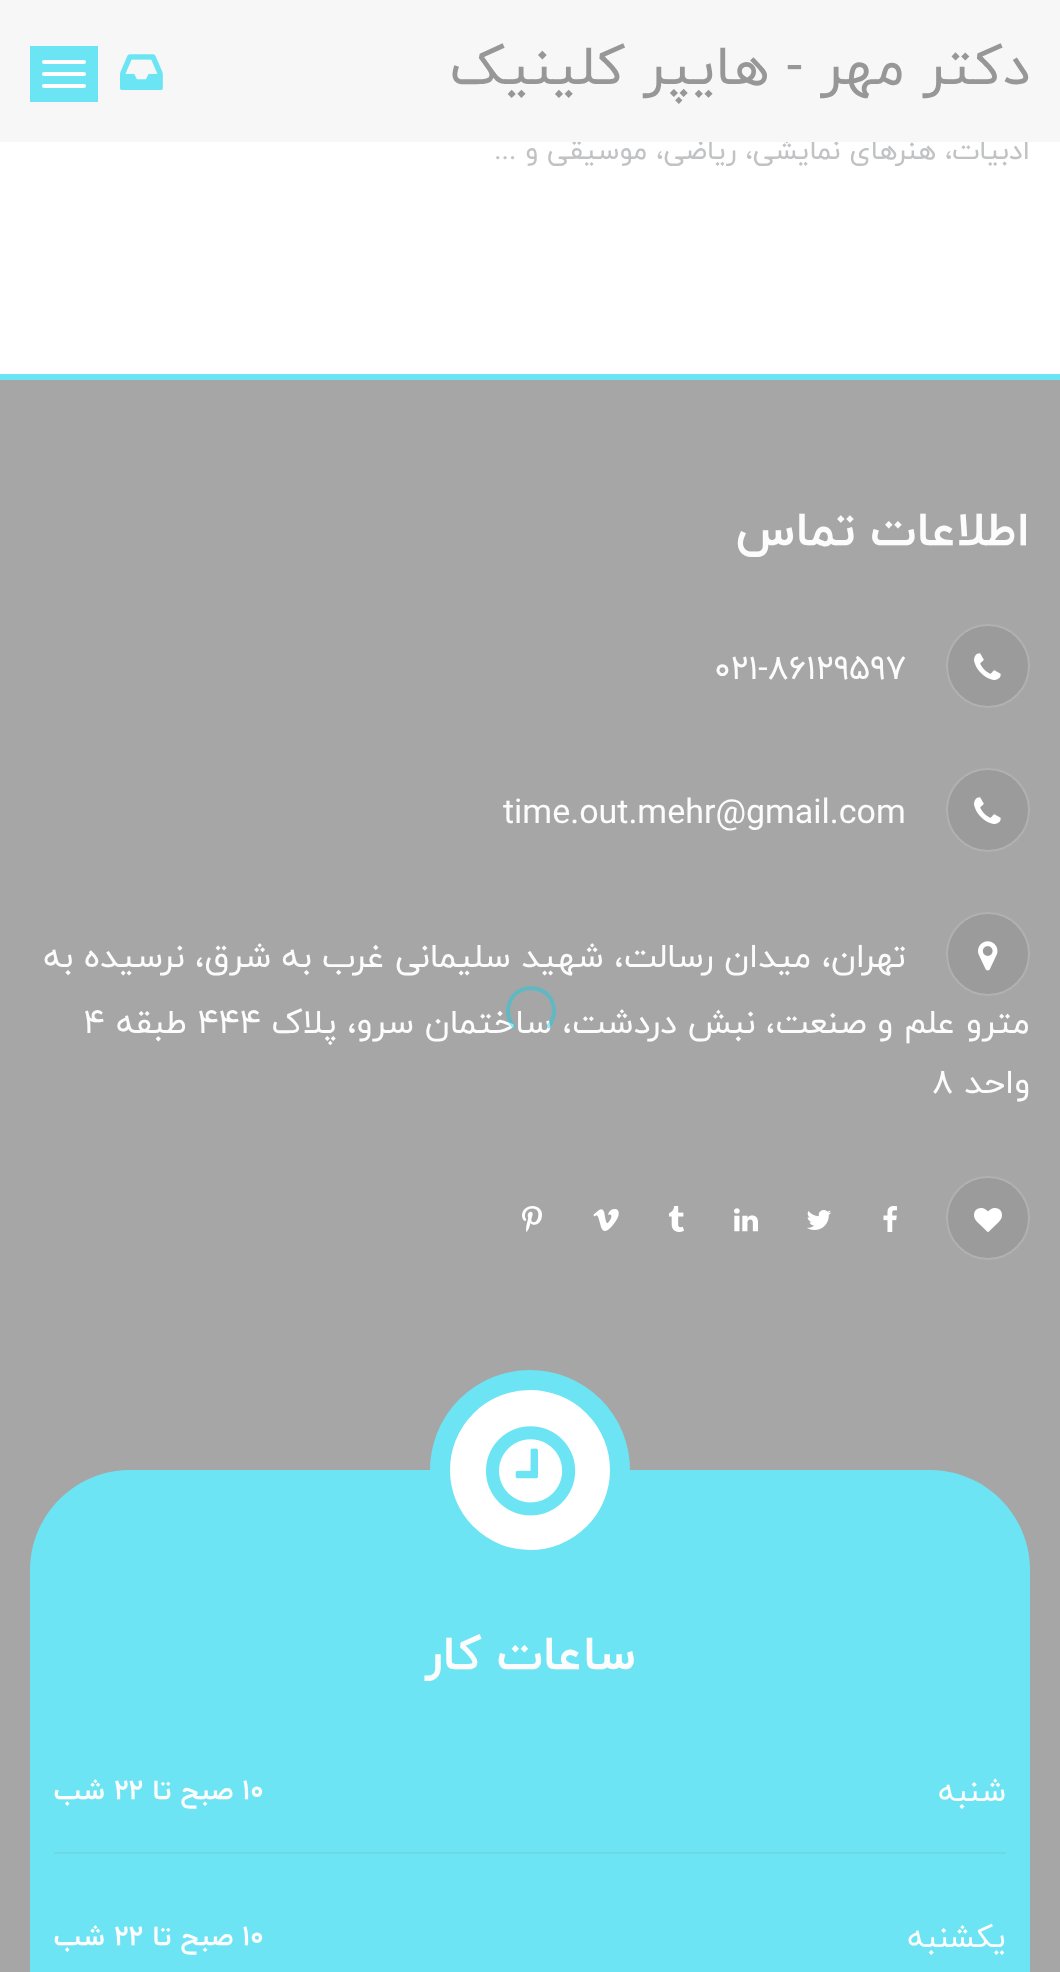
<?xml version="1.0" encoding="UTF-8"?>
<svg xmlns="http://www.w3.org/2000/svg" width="1060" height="1972">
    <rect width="100%" height="100%" fill="#FFFFFF"/>
    <text x="1030" y="159" font-family="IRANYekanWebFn" font-size="28" direction="rtl" fill="#C1C2C4">ادبیات، هنرهای نمایشی، ریاضی، موسیقی و ...</text>
    <rect x="0" y="0" width="1060" height="142" fill="#F7F7F7"/>
    <text x="1030" y="84" font-family="IRANYekanWebFn" font-size="56" direction="rtl" fill="#979797">دکتر مهر - هایپر کلینیک</text>
    <rect x="30" y="46" width="68" height="56" fill="#6BE5F3"/>
    <rect x="42" y="60" width="44" height="4" rx="2" fill="#FFFFFF"/>
    <rect x="42" y="72" width="44" height="4" rx="2" fill="#FFFFFF"/>
    <rect x="42" y="84" width="44" height="4" rx="2" fill="#FFFFFF"/>
    <image x="120" y="54" width="43" height="36" href="img_01.png"/>
    <rect x="0" y="374" width="1060" height="6" fill="#6BE5F3"/>
    <rect x="0" y="380" width="1060" height="1592" fill="#A6A6A6"/>
    <text x="1030" y="545" font-family="IRANYekanWebFn" font-size="48" font-weight="700" direction="rtl" fill="#FCFCFC">اطلاعات تماس</text>
    <circle cx="988" cy="666" r="41" fill="#9B9B9B" stroke="#B1B1B2" stroke-width="2"/>
    <image x="974" y="653" width="27" height="27" href="img_02.png"/>
    <text x="714" y="679" font-family="IRANYekanWebFn" font-size="34" fill="#FCFCFC">021-86129597</text>
    <circle cx="988" cy="810" r="41" fill="#9B9B9B" stroke="#B1B1B2" stroke-width="2"/>
    <image x="974" y="797" width="27" height="27" href="img_02.png"/>
    <text x="503" y="823" font-family="IRANYekanWebFn" font-size="34" fill="#FCFCFC">time.out.mehr@gmail.com</text>
    <circle cx="988" cy="954" r="41" fill="#9B9B9B" stroke="#B1B1B2" stroke-width="2"/>
    <image x="978" y="941" width="20" height="30" href="img_03.png"/>
    <text x="906" y="967" font-family="IRANYekanWebFn" font-size="34" direction="rtl" fill="#FCFCFC">تهران، میدان رسالت، شهید سلیمانی غرب به شرق، نرسیده به</text>
    <text x="1030" y="1033" font-family="IRANYekanWebFn" font-size="34" direction="rtl" fill="#FCFCFC">مترو علم و صنعت، نبش دردشت، ساختمان سرو، پلاک</text>
    <text x="198" y="1033" font-family="IRANYekanWebFn" font-size="34" fill="#FCFCFC">444</text>
    <text x="187" y="1033" font-family="IRANYekanWebFn" font-size="34" direction="rtl" fill="#FCFCFC">طبقه</text>
    <text x="84" y="1033" font-family="IRANYekanWebFn" font-size="34" fill="#FCFCFC">4</text>
    <text x="1030" y="1093" font-family="IRANYekanWebFn" font-size="34" direction="rtl" fill="#FCFCFC">واحد</text>
    <text x="932" y="1093" font-family="IRANYekanWebFn" font-size="34" fill="#FCFCFC">8</text>
    <circle cx="988" cy="1218" r="41" fill="#9B9B9B" stroke="#B1B1B2" stroke-width="2"/>
    <image x="974" y="1208" width="28" height="24" href="img_04.png"/>
    <image x="883" y="1206" width="14" height="26" href="img_05.png"/>
    <image x="806" y="1210" width="26" height="20" href="img_06.png"/>
    <image x="734" y="1208" width="24" height="24" href="img_07.png"/>
    <image x="669" y="1206" width="15" height="26" href="img_08.png"/>
    <image x="593" y="1209" width="26" height="22" href="img_09.png"/>
    <image x="522" y="1206" width="20" height="26" href="img_10.png"/>
    <path d="M 130 1470 H 930 C 985 1470 1030 1515 1030 1570 V 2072 H 30 V 1570 C 30 1515 75 1470 130 1470 Z" fill="#6CE4F3"/>
    <circle cx="530" cy="1470" r="90" fill="#FFFFFF" stroke="#6CE4F3" stroke-width="20"/>
    <image x="486" y="1426" width="90" height="90" href="img_11.png"/>
    <text x="636" y="1669" font-family="IRANYekanWebFn" font-size="48" font-weight="700" direction="rtl" fill="#FCFCFC">ساعات کار</text>
    <rect x="54" y="1852" width="952" height="2" fill="#6CD9E5"/>
    <text x="1006" y="1801" font-family="IRANYekanWebFn" font-size="32" direction="rtl" fill="#FCFCFC">شنبه</text>
    <text x="242" y="1799" font-family="IRANYekanWebFn" font-size="28" font-weight="700" fill="#FCFCFC">10</text>
    <text x="233" y="1799" font-family="IRANYekanWebFn" font-size="28" font-weight="700" direction="rtl" fill="#FCFCFC">صبح تا</text>
    <text x="114" y="1799" font-family="IRANYekanWebFn" font-size="28" font-weight="700" fill="#FCFCFC">22</text>
    <text x="105" y="1799" font-family="IRANYekanWebFn" font-size="28" font-weight="700" direction="rtl" fill="#FCFCFC">شب</text>
    <text x="1006" y="1947" font-family="IRANYekanWebFn" font-size="32" direction="rtl" fill="#FCFCFC">یکشنبه</text>
    <text x="242" y="1945" font-family="IRANYekanWebFn" font-size="28" font-weight="700" fill="#FCFCFC">10</text>
    <text x="233" y="1945" font-family="IRANYekanWebFn" font-size="28" font-weight="700" direction="rtl" fill="#FCFCFC">صبح تا</text>
    <text x="114" y="1945" font-family="IRANYekanWebFn" font-size="28" font-weight="700" fill="#FCFCFC">22</text>
    <text x="105" y="1945" font-family="IRANYekanWebFn" font-size="28" font-weight="700" direction="rtl" fill="#FCFCFC">شب</text>
    <path d="M 514.5 1027.5 C 509.5 1022 507 1014 508.5 1006.5 C 514 979.5 554 983.5 554 1011 C 554 1017 551.5 1023 547.5 1027.5" fill="none" stroke="#00D2EB" stroke-opacity="0.42" stroke-width="4"/>
</svg>
